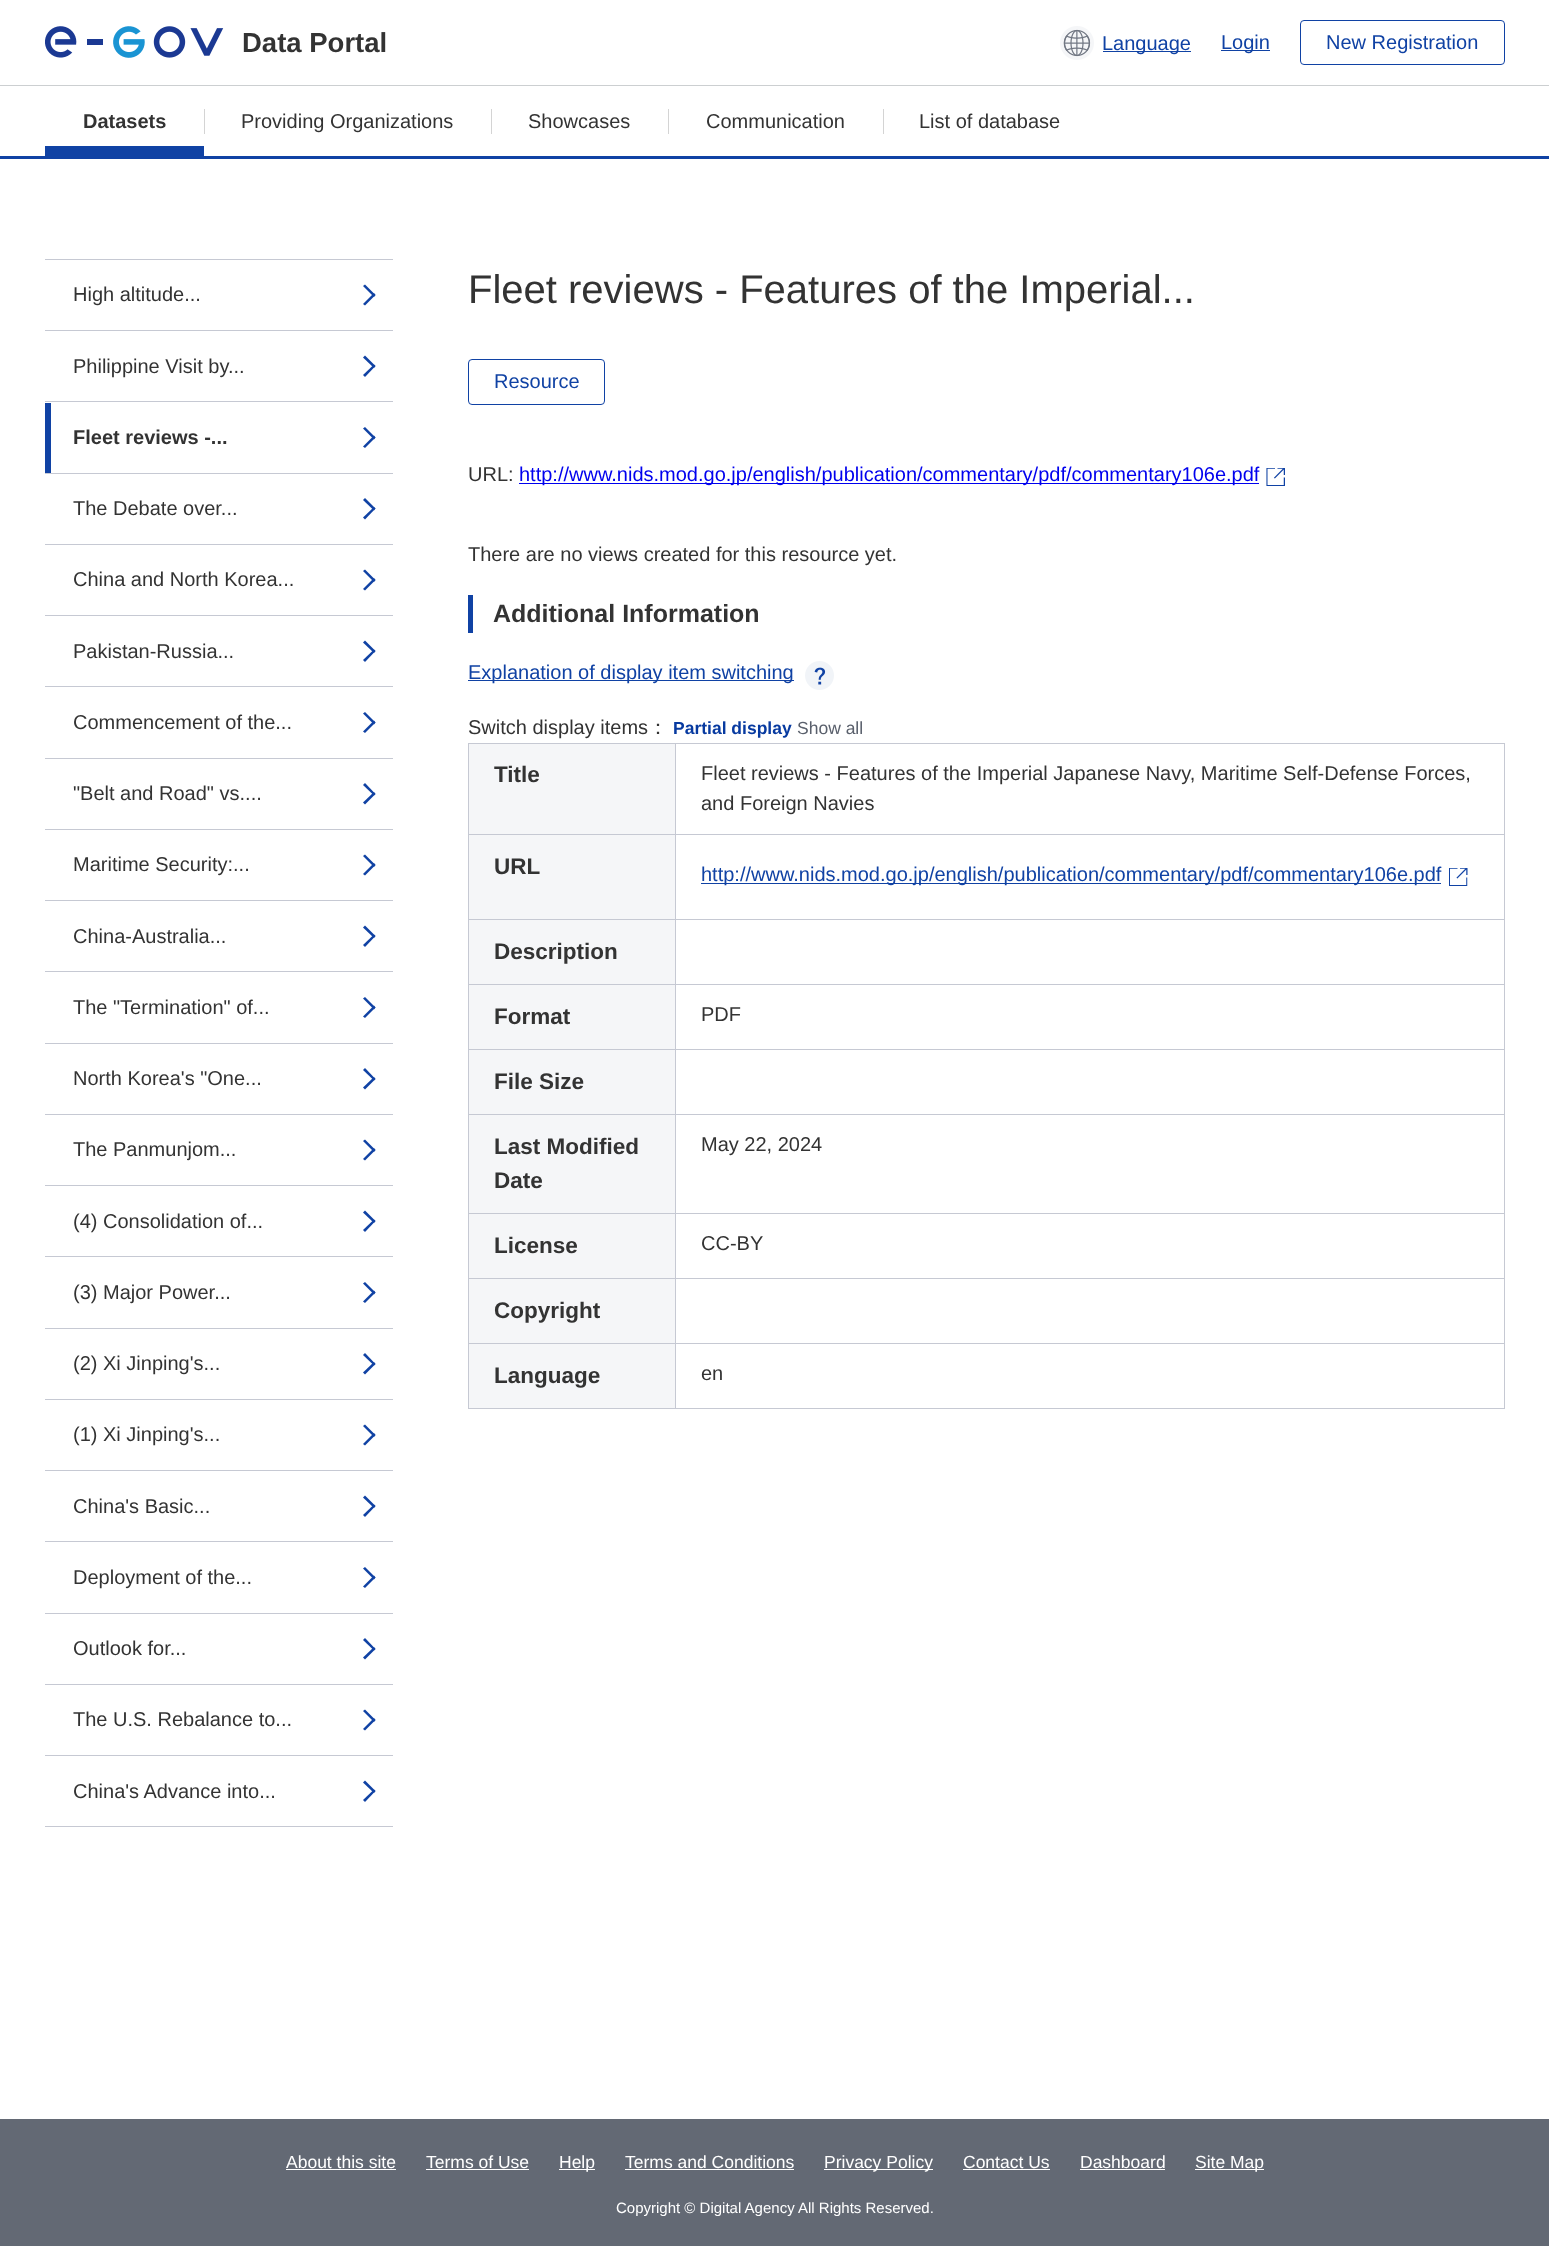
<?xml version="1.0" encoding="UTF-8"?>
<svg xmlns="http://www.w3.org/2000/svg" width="1549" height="2246">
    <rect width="100%" height="100%" fill="#FFFFFF"/>
    <rect x="0" y="85" width="1549" height="1" fill="#CCCFD1"/>
    <image x="45" y="26" width="179" height="32" href="img_01.png"/>
    <text x="242" y="52" font-family="Liberation Sans" font-size="27.5" font-weight="700" fill="#333333">Data Portal</text>
    <image x="1060" y="26" width="34" height="34" href="img_02.png"/>
    <rect x="1103" y="51" width="88" height="1" fill="#1042A4"/>
    <text x="1102" y="50" font-family="Liberation Sans" font-size="20" fill="#1042A4">Language</text>
    <rect x="1221" y="50" width="49" height="1" fill="#1042A4"/>
    <text x="1221" y="49" font-family="Liberation Sans" font-size="20" fill="#1042A4">Login</text>
    <rect x="1300.5" y="20.5" width="204" height="44" rx="3.5" fill="none" stroke="#1042A4"/>
    <text x="1326" y="49" font-family="Liberation Sans" font-size="20" fill="#1042A4">New Registration</text>
    <rect x="0" y="156" width="1549" height="3" fill="#1042A4"/>
    <text x="83" y="128" font-family="Liberation Sans" font-size="20" font-weight="700" fill="#333333">Datasets</text>
    <rect x="45" y="146" width="159" height="10" fill="#1042A4"/>
    <rect x="204" y="109" width="1" height="25" fill="#D4D4D4"/>
    <text x="241" y="128" font-family="Liberation Sans" font-size="20" fill="#333333">Providing Organizations</text>
    <rect x="491" y="109" width="1" height="25" fill="#D4D4D4"/>
    <text x="528" y="128" font-family="Liberation Sans" font-size="20" fill="#333333">Showcases</text>
    <rect x="668" y="109" width="1" height="25" fill="#D4D4D4"/>
    <text x="706" y="128" font-family="Liberation Sans" font-size="20" fill="#333333">Communication</text>
    <rect x="883" y="109" width="1" height="25" fill="#D4D4D4"/>
    <text x="919" y="128" font-family="Liberation Sans" font-size="20" fill="#333333">List of database</text>
    <rect x="45" y="259" width="348" height="1" fill="#C6C9D3"/>
    <rect x="45" y="330" width="348" height="1" fill="#C6C9D3"/>
    <text x="73" y="301" font-family="Liberation Sans" font-size="20" fill="#333333">High altitude...</text>
    <path d="M 363 286 L 365 284.5 L 375.5 295 L 374 297 Z" fill="#1042A4"/>
    <path d="M 363 304 L 374 293 L 375.5 295 L 365 305.5 Z" fill="#1042A4"/>
    <rect x="45" y="401" width="348" height="1" fill="#C6C9D3"/>
    <text x="73" y="373" font-family="Liberation Sans" font-size="20" fill="#333333">Philippine Visit by...</text>
    <path d="M 363 357.5 L 365 355.5 L 375.5 366 L 374 368 Z" fill="#1042A4"/>
    <path d="M 363 375 L 374 364.5 L 375.5 366 L 365 377 Z" fill="#1042A4"/>
    <rect x="45" y="473" width="348" height="1" fill="#C6C9D3"/>
    <rect x="45" y="403" width="6" height="70" fill="#1042A4"/>
    <text x="73" y="444" font-family="Liberation Sans" font-size="20" font-weight="700" fill="#333333">Fleet reviews -...</text>
    <path d="M 363 428.5 L 365 427 L 375.5 437.5 L 374 439.5 Z" fill="#1042A4"/>
    <path d="M 363 446.5 L 374 435.5 L 375.5 437.5 L 365 448 Z" fill="#1042A4"/>
    <rect x="45" y="544" width="348" height="1" fill="#C6C9D3"/>
    <text x="73" y="515" font-family="Liberation Sans" font-size="20" fill="#333333">The Debate over...</text>
    <path d="M 363 500 L 365 498 L 375.5 508.5 L 374 510.5 Z" fill="#1042A4"/>
    <path d="M 363 517.5 L 374 507 L 375.5 508.5 L 365 519.5 Z" fill="#1042A4"/>
    <rect x="45" y="615" width="348" height="1" fill="#C6C9D3"/>
    <text x="73" y="586" font-family="Liberation Sans" font-size="20" fill="#333333">China and North Korea...</text>
    <path d="M 363 571 L 365 569.5 L 375.5 580 L 374 582 Z" fill="#1042A4"/>
    <path d="M 363 589 L 374 578 L 375.5 580 L 365 590.5 Z" fill="#1042A4"/>
    <rect x="45" y="686" width="348" height="1" fill="#C6C9D3"/>
    <text x="73" y="658" font-family="Liberation Sans" font-size="20" fill="#333333">Pakistan-Russia...</text>
    <path d="M 363 642.5 L 365 640.5 L 375.5 651 L 374 653 Z" fill="#1042A4"/>
    <path d="M 363 660 L 374 649.5 L 375.5 651 L 365 662 Z" fill="#1042A4"/>
    <rect x="45" y="758" width="348" height="1" fill="#C6C9D3"/>
    <text x="73" y="729" font-family="Liberation Sans" font-size="20" fill="#333333">Commencement of the...</text>
    <path d="M 363 713.5 L 365 712 L 375.5 722.5 L 374 724.5 Z" fill="#1042A4"/>
    <path d="M 363 731.5 L 374 720.5 L 375.5 722.5 L 365 733 Z" fill="#1042A4"/>
    <rect x="45" y="829" width="348" height="1" fill="#C6C9D3"/>
    <text x="73" y="800" font-family="Liberation Sans" font-size="20" fill="#333333">"Belt and Road" vs....</text>
    <path d="M 363 785 L 365 783 L 375.5 794 L 374 795.5 Z" fill="#1042A4"/>
    <path d="M 363 802.5 L 374 792 L 375.5 794 L 365 804.5 Z" fill="#1042A4"/>
    <rect x="45" y="900" width="348" height="1" fill="#C6C9D3"/>
    <text x="73" y="871" font-family="Liberation Sans" font-size="20" fill="#333333">Maritime Security:...</text>
    <path d="M 363 856 L 365 854.5 L 375.5 865 L 374 867 Z" fill="#1042A4"/>
    <path d="M 363 874 L 374 863 L 375.5 865 L 365 875.5 Z" fill="#1042A4"/>
    <rect x="45" y="971" width="348" height="1" fill="#C6C9D3"/>
    <text x="73" y="943" font-family="Liberation Sans" font-size="20" fill="#333333">China-Australia...</text>
    <path d="M 363 927.5 L 365 925.5 L 375.5 936 L 374 938 Z" fill="#1042A4"/>
    <path d="M 363 945 L 374 934.5 L 375.5 936 L 365 947 Z" fill="#1042A4"/>
    <rect x="45" y="1043" width="348" height="1" fill="#C6C9D3"/>
    <text x="73" y="1014" font-family="Liberation Sans" font-size="20" fill="#333333">The "Termination" of...</text>
    <path d="M 363 998.5 L 365 997 L 375.5 1007.5 L 374 1009.5 Z" fill="#1042A4"/>
    <path d="M 363 1016.5 L 374 1005.5 L 375.5 1007.5 L 365 1018 Z" fill="#1042A4"/>
    <rect x="45" y="1114" width="348" height="1" fill="#C6C9D3"/>
    <text x="73" y="1085" font-family="Liberation Sans" font-size="20" fill="#333333">North Korea's "One...</text>
    <path d="M 363 1070 L 365 1068 L 375.5 1079 L 374 1080.5 Z" fill="#1042A4"/>
    <path d="M 363 1087.5 L 374 1077 L 375.5 1079 L 365 1089.5 Z" fill="#1042A4"/>
    <rect x="45" y="1185" width="348" height="1" fill="#C6C9D3"/>
    <text x="73" y="1156" font-family="Liberation Sans" font-size="20" fill="#333333">The Panmunjom...</text>
    <path d="M 363 1141 L 365 1139.5 L 375.5 1150 L 374 1152 Z" fill="#1042A4"/>
    <path d="M 363 1159 L 374 1148 L 375.5 1150 L 365 1160.5 Z" fill="#1042A4"/>
    <rect x="45" y="1256" width="348" height="1" fill="#C6C9D3"/>
    <text x="73" y="1228" font-family="Liberation Sans" font-size="20" fill="#333333">(4) Consolidation of...</text>
    <path d="M 363 1212.5 L 365 1210.5 L 375.5 1221 L 374 1223 Z" fill="#1042A4"/>
    <path d="M 363 1230 L 374 1219.5 L 375.5 1221 L 365 1232 Z" fill="#1042A4"/>
    <rect x="45" y="1328" width="348" height="1" fill="#C6C9D3"/>
    <text x="73" y="1299" font-family="Liberation Sans" font-size="20" fill="#333333">(3) Major Power...</text>
    <path d="M 363 1283.5 L 365 1282 L 375.5 1292.5 L 374 1294.5 Z" fill="#1042A4"/>
    <path d="M 363 1301.5 L 374 1290.5 L 375.5 1292.5 L 365 1303 Z" fill="#1042A4"/>
    <rect x="45" y="1399" width="348" height="1" fill="#C6C9D3"/>
    <text x="73" y="1370" font-family="Liberation Sans" font-size="20" fill="#333333">(2) Xi Jinping's...</text>
    <path d="M 363 1355 L 365 1353 L 375.5 1364 L 374 1365.5 Z" fill="#1042A4"/>
    <path d="M 363 1372.5 L 374 1362 L 375.5 1364 L 365 1374.5 Z" fill="#1042A4"/>
    <rect x="45" y="1470" width="348" height="1" fill="#C6C9D3"/>
    <text x="73" y="1441" font-family="Liberation Sans" font-size="20" fill="#333333">(1) Xi Jinping's...</text>
    <path d="M 363 1426 L 365 1424.5 L 375.5 1435 L 374 1437 Z" fill="#1042A4"/>
    <path d="M 363 1444 L 374 1433 L 375.5 1435 L 365 1445.5 Z" fill="#1042A4"/>
    <rect x="45" y="1541" width="348" height="1" fill="#C6C9D3"/>
    <text x="73" y="1513" font-family="Liberation Sans" font-size="20" fill="#333333">China's Basic...</text>
    <path d="M 363 1497.5 L 365 1495.5 L 375.5 1506 L 374 1508 Z" fill="#1042A4"/>
    <path d="M 363 1515 L 374 1504.5 L 375.5 1506 L 365 1517 Z" fill="#1042A4"/>
    <rect x="45" y="1613" width="348" height="1" fill="#C6C9D3"/>
    <text x="73" y="1584" font-family="Liberation Sans" font-size="20" fill="#333333">Deployment of the...</text>
    <path d="M 363 1568.5 L 365 1567 L 375.5 1577.5 L 374 1579.5 Z" fill="#1042A4"/>
    <path d="M 363 1586.5 L 374 1575.5 L 375.5 1577.5 L 365 1588 Z" fill="#1042A4"/>
    <rect x="45" y="1684" width="348" height="1" fill="#C6C9D3"/>
    <text x="73" y="1655" font-family="Liberation Sans" font-size="20" fill="#333333">Outlook for...</text>
    <path d="M 363 1640 L 365 1638 L 375.5 1649 L 374 1650.5 Z" fill="#1042A4"/>
    <path d="M 363 1657.5 L 374 1647 L 375.5 1649 L 365 1659.5 Z" fill="#1042A4"/>
    <rect x="45" y="1755" width="348" height="1" fill="#C6C9D3"/>
    <text x="73" y="1726" font-family="Liberation Sans" font-size="20" fill="#333333">The U.S. Rebalance to...</text>
    <path d="M 363 1711 L 365 1709.5 L 375.5 1720 L 374 1722 Z" fill="#1042A4"/>
    <path d="M 363 1729 L 374 1718 L 375.5 1720 L 365 1730.5 Z" fill="#1042A4"/>
    <rect x="45" y="1826" width="348" height="1" fill="#C6C9D3"/>
    <text x="73" y="1798" font-family="Liberation Sans" font-size="20" fill="#333333">China's Advance into...</text>
    <path d="M 363 1782.5 L 365 1780.5 L 375.5 1791 L 374 1793 Z" fill="#1042A4"/>
    <path d="M 363 1800 L 374 1789.5 L 375.5 1791 L 365 1802 Z" fill="#1042A4"/>
    <text x="468" y="303" font-family="Liberation Sans" font-size="40" fill="#333333">Fleet reviews - Features of the Imperial...</text>
    <rect x="468.5" y="359.5" width="136" height="45" rx="3.5" fill="none" stroke="#1042A4"/>
    <text x="494" y="388" font-family="Liberation Sans" font-size="20" fill="#1042A4">Resource</text>
    <text x="468" y="481" font-family="Liberation Sans" font-size="20" fill="#333333">URL:</text>
    <rect x="519" y="483" width="740" height="1" fill="#0000EE"/>
    <text x="519" y="481" font-family="Liberation Sans" font-size="20" fill="#0000EE">http://www.nids.mod.go.jp/english/publication/commentary/pdf/commentary106e.pdf</text>
    <image x="1266" y="468" width="19" height="18" href="img_03.png"/>
    <text x="468" y="561" font-family="Liberation Sans" font-size="20" fill="#333333">There are no views created for this resource yet.</text>
    <rect x="468" y="595" width="5" height="38" fill="#1042A4"/>
    <text x="493" y="622" font-family="Liberation Sans" font-size="25" font-weight="700" fill="#333333">Additional Information</text>
    <rect x="468" y="680" width="326" height="1" fill="#1042A4"/>
    <text x="468" y="679" font-family="Liberation Sans" font-size="20" fill="#1042A4">Explanation of display item switching</text>
    <image x="805" y="661" width="29" height="29" href="img_04.png"/>
    <text x="468" y="734" font-family="Liberation Sans" font-size="20" fill="#333333">Switch display items</text>
    <text x="648" y="734" font-family="WenQuanYi Zen Hei" font-size="20" font-weight="500" fill="#333333">：</text>
    <text x="673" y="734" font-family="Liberation Sans" font-size="17.5" font-weight="700" fill="#073AA0">Partial display</text>
    <text x="797" y="734" font-family="Liberation Sans" font-size="17.5" fill="#5A606C">Show all</text>
    <rect x="469" y="744" width="206" height="90" fill="#F5F6F8"/>
    <rect x="675" y="743" width="830" height="1" fill="#C6C9D3"/>
    <rect x="675" y="834" width="830" height="1" fill="#C6C9D3"/>
    <rect x="675" y="919" width="830" height="1" fill="#C6C9D3"/>
    <rect x="675" y="984" width="830" height="1" fill="#C6C9D3"/>
    <rect x="675" y="1049" width="830" height="1" fill="#C6C9D3"/>
    <rect x="675" y="1114" width="830" height="1" fill="#C6C9D3"/>
    <rect x="675" y="1213" width="830" height="1" fill="#C6C9D3"/>
    <rect x="675" y="1278" width="830" height="1" fill="#C6C9D3"/>
    <rect x="675" y="1343" width="830" height="1" fill="#C6C9D3"/>
    <rect x="1504" y="1343" width="1" height="66" fill="#C6C9D3"/>
    <rect x="675" y="1408" width="830" height="1" fill="#C6C9D3"/>
    <rect x="675" y="1343" width="1" height="66" fill="#C6C9D3"/>
    <rect x="468" y="1343" width="208" height="1" fill="#C6C9D3"/>
    <rect x="675" y="1278" width="1" height="66" fill="#C6C9D3"/>
    <rect x="468" y="1278" width="208" height="1" fill="#C6C9D3"/>
    <rect x="675" y="1213" width="1" height="66" fill="#C6C9D3"/>
    <rect x="468" y="1213" width="208" height="1" fill="#C6C9D3"/>
    <rect x="675" y="1114" width="1" height="100" fill="#C6C9D3"/>
    <rect x="468" y="1114" width="208" height="1" fill="#C6C9D3"/>
    <rect x="675" y="1049" width="1" height="66" fill="#C6C9D3"/>
    <rect x="468" y="1049" width="208" height="1" fill="#C6C9D3"/>
    <rect x="675" y="984" width="1" height="66" fill="#C6C9D3"/>
    <rect x="468" y="984" width="208" height="1" fill="#C6C9D3"/>
    <rect x="675" y="919" width="1" height="66" fill="#C6C9D3"/>
    <rect x="468" y="919" width="208" height="1" fill="#C6C9D3"/>
    <rect x="675" y="834" width="1" height="86" fill="#C6C9D3"/>
    <rect x="468" y="834" width="208" height="1" fill="#C6C9D3"/>
    <rect x="675" y="743" width="1" height="92" fill="#C6C9D3"/>
    <rect x="468" y="743" width="208" height="1" fill="#C6C9D3"/>
    <rect x="468" y="1408" width="208" height="1" fill="#C6C9D3"/>
    <rect x="468" y="1343" width="1" height="66" fill="#C6C9D3"/>
    <rect x="468" y="1278" width="1" height="66" fill="#C6C9D3"/>
    <rect x="468" y="1213" width="1" height="66" fill="#C6C9D3"/>
    <rect x="468" y="1114" width="1" height="100" fill="#C6C9D3"/>
    <rect x="468" y="1049" width="1" height="66" fill="#C6C9D3"/>
    <rect x="468" y="984" width="1" height="66" fill="#C6C9D3"/>
    <rect x="468" y="919" width="1" height="66" fill="#C6C9D3"/>
    <rect x="468" y="834" width="1" height="86" fill="#C6C9D3"/>
    <rect x="468" y="743" width="1" height="92" fill="#C6C9D3"/>
    <text x="494" y="782" font-family="Liberation Sans" font-size="22.5" font-weight="700" fill="#333333">Title</text>
    <rect x="1504" y="1278" width="1" height="66" fill="#C6C9D3"/>
    <rect x="1504" y="1213" width="1" height="66" fill="#C6C9D3"/>
    <rect x="1504" y="1114" width="1" height="100" fill="#C6C9D3"/>
    <rect x="1504" y="1049" width="1" height="66" fill="#C6C9D3"/>
    <rect x="1504" y="984" width="1" height="66" fill="#C6C9D3"/>
    <rect x="1504" y="919" width="1" height="66" fill="#C6C9D3"/>
    <rect x="1504" y="834" width="1" height="86" fill="#C6C9D3"/>
    <rect x="1504" y="743" width="1" height="92" fill="#C6C9D3"/>
    <text font-family="Liberation Sans" font-size="20" fill="#333333">
        <tspan x="701" y="780">Fleet reviews - Features of the Imperial Japanese Navy, Maritime Self-Defense Forces,</tspan>
        <tspan x="701" y="810">and Foreign Navies</tspan>
    </text>
    <rect x="469" y="835" width="206" height="84" fill="#F5F6F8"/>
    <text x="494" y="874" font-family="Liberation Sans" font-size="22.5" font-weight="700" fill="#333333">URL</text>
    <rect x="701" y="883" width="740" height="1" fill="#1042A4"/>
    <text x="701" y="881" font-family="Liberation Sans" font-size="20" fill="#1042A4">http://www.nids.mod.go.jp/english/publication/commentary/pdf/commentary106e.pdf</text>
    <image x="1449" y="868" width="19" height="18" href="img_05.png"/>
    <rect x="469" y="920" width="206" height="64" fill="#F5F6F8"/>
    <text x="494" y="959" font-family="Liberation Sans" font-size="22.5" font-weight="700" fill="#333333">Description</text>
    <rect x="469" y="985" width="206" height="64" fill="#F5F6F8"/>
    <text x="494" y="1024" font-family="Liberation Sans" font-size="22.5" font-weight="700" fill="#333333">Format</text>
    <text x="701" y="1021" font-family="Liberation Sans" font-size="20" fill="#333333">PDF</text>
    <rect x="469" y="1050" width="206" height="64" fill="#F5F6F8"/>
    <text x="494" y="1089" font-family="Liberation Sans" font-size="22.5" font-weight="700" fill="#333333">File Size</text>
    <rect x="469" y="1115" width="206" height="98" fill="#F5F6F8"/>
    <text font-family="Liberation Sans" font-size="22.5" font-weight="700" fill="#333333">
        <tspan x="494" y="1154">Last Modified</tspan>
        <tspan x="494" y="1188">Date</tspan>
    </text>
    <text x="701" y="1151" font-family="Liberation Sans" font-size="20" fill="#333333">May 22, 2024</text>
    <rect x="469" y="1214" width="206" height="64" fill="#F5F6F8"/>
    <text x="494" y="1253" font-family="Liberation Sans" font-size="22.5" font-weight="700" fill="#333333">License</text>
    <text x="701" y="1250" font-family="Liberation Sans" font-size="20" fill="#333333">CC-BY</text>
    <rect x="469" y="1279" width="206" height="64" fill="#F5F6F8"/>
    <text x="494" y="1318" font-family="Liberation Sans" font-size="22.5" font-weight="700" fill="#333333">Copyright</text>
    <rect x="469" y="1344" width="206" height="64" fill="#F5F6F8"/>
    <text x="494" y="1383" font-family="Liberation Sans" font-size="22.5" font-weight="700" fill="#333333">Language</text>
    <text x="701" y="1380" font-family="Liberation Sans" font-size="20" fill="#333333">en</text>
    <rect x="0" y="2119" width="1549" height="127" fill="#636974"/>
    <text x="286" y="2168" font-family="Liberation Sans" font-size="17.5" fill="#FFFFFF">About this site</text>
    <rect x="286" y="2169" width="110" height="1" fill="#FFFFFF"/>
    <text x="426" y="2168" font-family="Liberation Sans" font-size="17.5" fill="#FFFFFF">Terms of Use</text>
    <rect x="426" y="2169" width="103" height="1" fill="#FFFFFF"/>
    <rect x="559" y="2169" width="36" height="1" fill="#FFFFFF"/>
    <text x="559" y="2168" font-family="Liberation Sans" font-size="17.5" fill="#FFFFFF">Help</text>
    <text x="625" y="2168" font-family="Liberation Sans" font-size="17.5" fill="#FFFFFF">Terms and Conditions</text>
    <rect x="625" y="2169" width="169" height="1" fill="#FFFFFF"/>
    <rect x="824" y="2169" width="109" height="1" fill="#FFFFFF"/>
    <text x="824" y="2168" font-family="Liberation Sans" font-size="17.5" fill="#FFFFFF">Privacy Policy</text>
    <text x="963" y="2168" font-family="Liberation Sans" font-size="17.5" fill="#FFFFFF">Contact Us</text>
    <rect x="963" y="2169" width="87" height="1" fill="#FFFFFF"/>
    <text x="1080" y="2168" font-family="Liberation Sans" font-size="17.5" fill="#FFFFFF">Dashboard</text>
    <rect x="1080" y="2169" width="85" height="1" fill="#FFFFFF"/>
    <rect x="1195" y="2169" width="69" height="1" fill="#FFFFFF"/>
    <text x="1195" y="2168" font-family="Liberation Sans" font-size="17.5" fill="#FFFFFF">Site Map</text>
    <text x="616" y="2213" font-family="Liberation Sans" font-size="15" fill="#FFFFFF">Copyright © Digital Agency All Rights Reserved.</text>
</svg>
